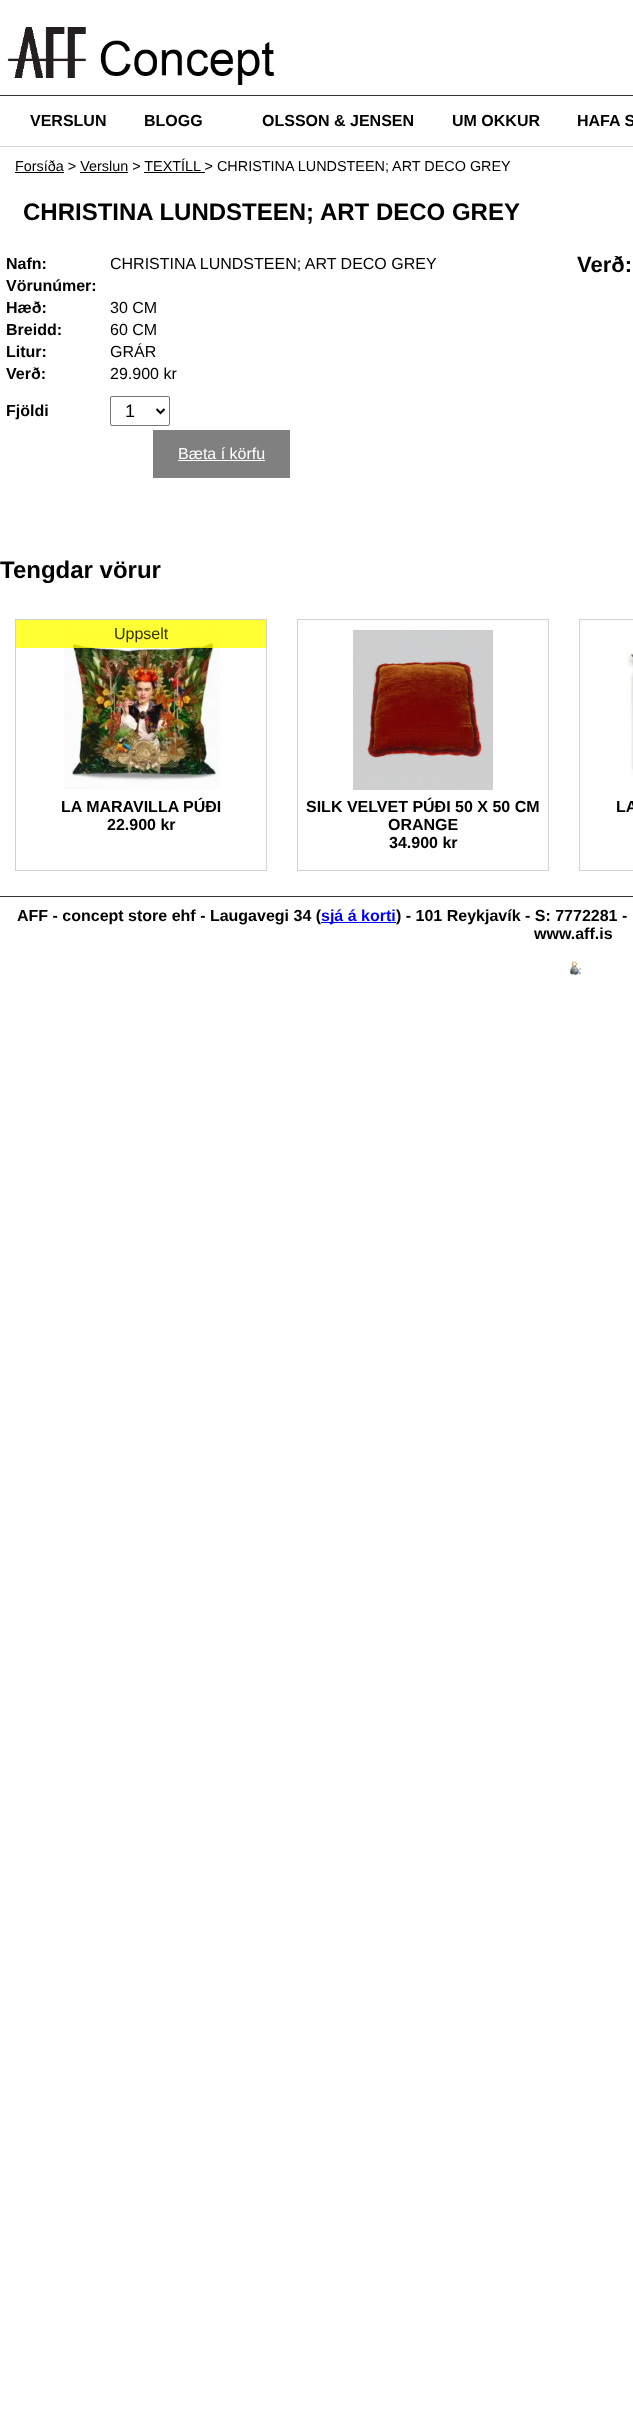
<?xml version="1.0" encoding="UTF-8"?>
<svg xmlns="http://www.w3.org/2000/svg" width="633" height="2418">
    <rect width="100%" height="100%" fill="#FFFFFF"/>
    <rect x="0" y="95" width="633" height="1" fill="#333333"/>
    <image x="7" y="27" width="268" height="58" href="img_01.png"/>
    <rect x="0" y="146" width="633" height="1" fill="#D3D3D3"/>
    <text x="30" y="126" font-family="Liberation Sans" font-size="16" font-weight="700" fill="#000000">VERSLUN</text>
    <text x="144" y="126" font-family="Liberation Sans" font-size="16" font-weight="700" fill="#000000">BLOGG</text>
    <text x="262" y="126" font-family="Liberation Sans" font-size="16" font-weight="700" fill="#000000">OLSSON &amp; JENSEN</text>
    <text x="452" y="126" font-family="Liberation Sans" font-size="16" font-weight="700" fill="#000000">UM OKKUR</text>
    <text x="577" y="126" font-family="Liberation Sans" font-size="16" font-weight="700" fill="#000000">HAFA S</text>
    <rect x="15" y="172" width="49" height="1" fill="#000000"/>
    <text x="15" y="171" font-family="Liberation Sans" font-size="14.4" fill="#000000">Forsíða &gt; Verslun &gt; TEXTÍLL &gt; CHRISTINA LUNDSTEEN; ART DECO GREY</text>
    <rect x="80" y="172" width="48" height="1" fill="#000000"/>
    <rect x="144" y="172" width="61" height="1" fill="#000000"/>
    <text x="23" y="220" font-family="Liberation Sans" font-size="24" font-weight="700" fill="#000000">CHRISTINA LUNDSTEEN; ART DECO GREY</text>
    <text x="6" y="269" font-family="Liberation Sans" font-size="16" font-weight="700" fill="#000000">Nafn:</text>
    <text x="110" y="269" font-family="Liberation Sans" font-size="16" fill="#000000">CHRISTINA LUNDSTEEN; ART DECO GREY</text>
    <text font-family="Liberation Sans" font-size="16" font-weight="700" fill="#000000">
        <tspan x="6" y="291">Vörunúmer:</tspan>
        <tspan x="6" y="313">Hæð:</tspan>
    </text>
    <text x="110" y="313" font-family="Liberation Sans" font-size="16" fill="#000000">30 CM</text>
    <text x="6" y="335" font-family="Liberation Sans" font-size="16" font-weight="700" fill="#000000">Breidd:</text>
    <text x="110" y="335" font-family="Liberation Sans" font-size="16" fill="#000000">60 CM</text>
    <text x="6" y="357" font-family="Liberation Sans" font-size="16" font-weight="700" fill="#000000">Litur:</text>
    <text x="110" y="357" font-family="Liberation Sans" font-size="16" fill="#000000">GRÁR</text>
    <text x="6" y="379" font-family="Liberation Sans" font-size="16" font-weight="700" fill="#000000">Verð:</text>
    <text x="110" y="379" font-family="Liberation Sans" font-size="16" fill="#000000">29.900 kr</text>
    <text x="6" y="416" font-family="Liberation Sans" font-size="16" font-weight="700" fill="#000000">Fjöldi</text>
    <rect x="110.5" y="396.5" width="59" height="29" rx="1.5" fill="none" stroke="#767676"/>
    <path d="M 156.5 409 L 160.5 413 L 164.5 409" fill="none" stroke="#000000" stroke-width="2"/>
    <text x="125" y="417" font-family="Liberation Sans" font-size="18" fill="#000000">1</text>
    <rect x="153" y="430" width="137" height="48" fill="#808080"/>
    <text x="178" y="459" font-family="Liberation Sans" font-size="16" fill="#FFFFFF">Bæta í körfu</text>
    <rect x="178" y="460" width="87" height="1" fill="#FFFFFF"/>
    <text x="577" y="272" font-family="Liberation Sans" font-size="22" font-weight="700" fill="#000000">Verð:</text>
    <text x="0" y="578" font-family="Liberation Sans" font-size="24" font-weight="700" fill="#000000">Tengdar vörur</text>
    <rect x="15.5" y="619.5" width="251" height="251" fill="none" stroke="#D3D3D3"/>
    <image x="64" y="630" width="156" height="159" href="img_02.png"/>
    <rect x="16" y="620" width="250" height="28" fill="#FFFF00" fill-opacity="0.8"/>
    <text x="114" y="639" font-family="Liberation Sans" font-size="16" fill="#33330A">Uppselt</text>
    <text x="61" y="812" font-family="Liberation Sans" font-size="16" font-weight="700" fill="#000000">LA MARAVILLA PÚÐI</text>
    <text x="107" y="830" font-family="Liberation Sans" font-size="16" font-weight="700" fill="#000000">22.900 kr</text>
    <rect x="297.5" y="619.5" width="251" height="251" fill="none" stroke="#D3D3D3"/>
    <image x="353" y="630" width="140" height="160" href="img_03.png"/>
    <text x="306" y="812" font-family="Liberation Sans" font-size="16" font-weight="700" fill="#000000">SILK VELVET PÚÐI 50 X 50 CM</text>
    <text x="388" y="830" font-family="Liberation Sans" font-size="16" font-weight="700" fill="#000000">ORANGE</text>
    <text x="389" y="848" font-family="Liberation Sans" font-size="16" font-weight="700" fill="#000000">34.900 kr</text>
    <rect x="579.5" y="619.5" width="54" height="251" fill="none" stroke="#D3D3D3"/>
    <image x="626" y="651" width="7" height="125" href="img_04.png"/>
    <text x="616" y="812" font-family="Liberation Sans" font-size="16" font-weight="700" fill="#000000">LA</text>
    <rect x="0" y="896" width="633" height="1" fill="#333333"/>
    <text x="17" y="921" font-family="Liberation Sans" font-size="16" font-weight="700" fill="#000000">AFF - concept store ehf - Laugavegi 34 (</text>
    <rect x="321" y="922" width="75" height="1" fill="#0000EE"/>
    <text x="321" y="921" font-family="Liberation Sans" font-size="16" font-weight="700" fill="#0000EE">sjá á korti</text>
    <text x="396" y="921" font-family="Liberation Sans" font-size="16" font-weight="700" fill="#000000">) - 101 Reykjavík - S: 7772281 -</text>
    <text x="534" y="939" font-family="Liberation Sans" font-size="16" font-weight="700" fill="#000000">www.aff.is</text>
    <image x="570" y="961" width="11" height="15" href="img_05.png"/>
</svg>
